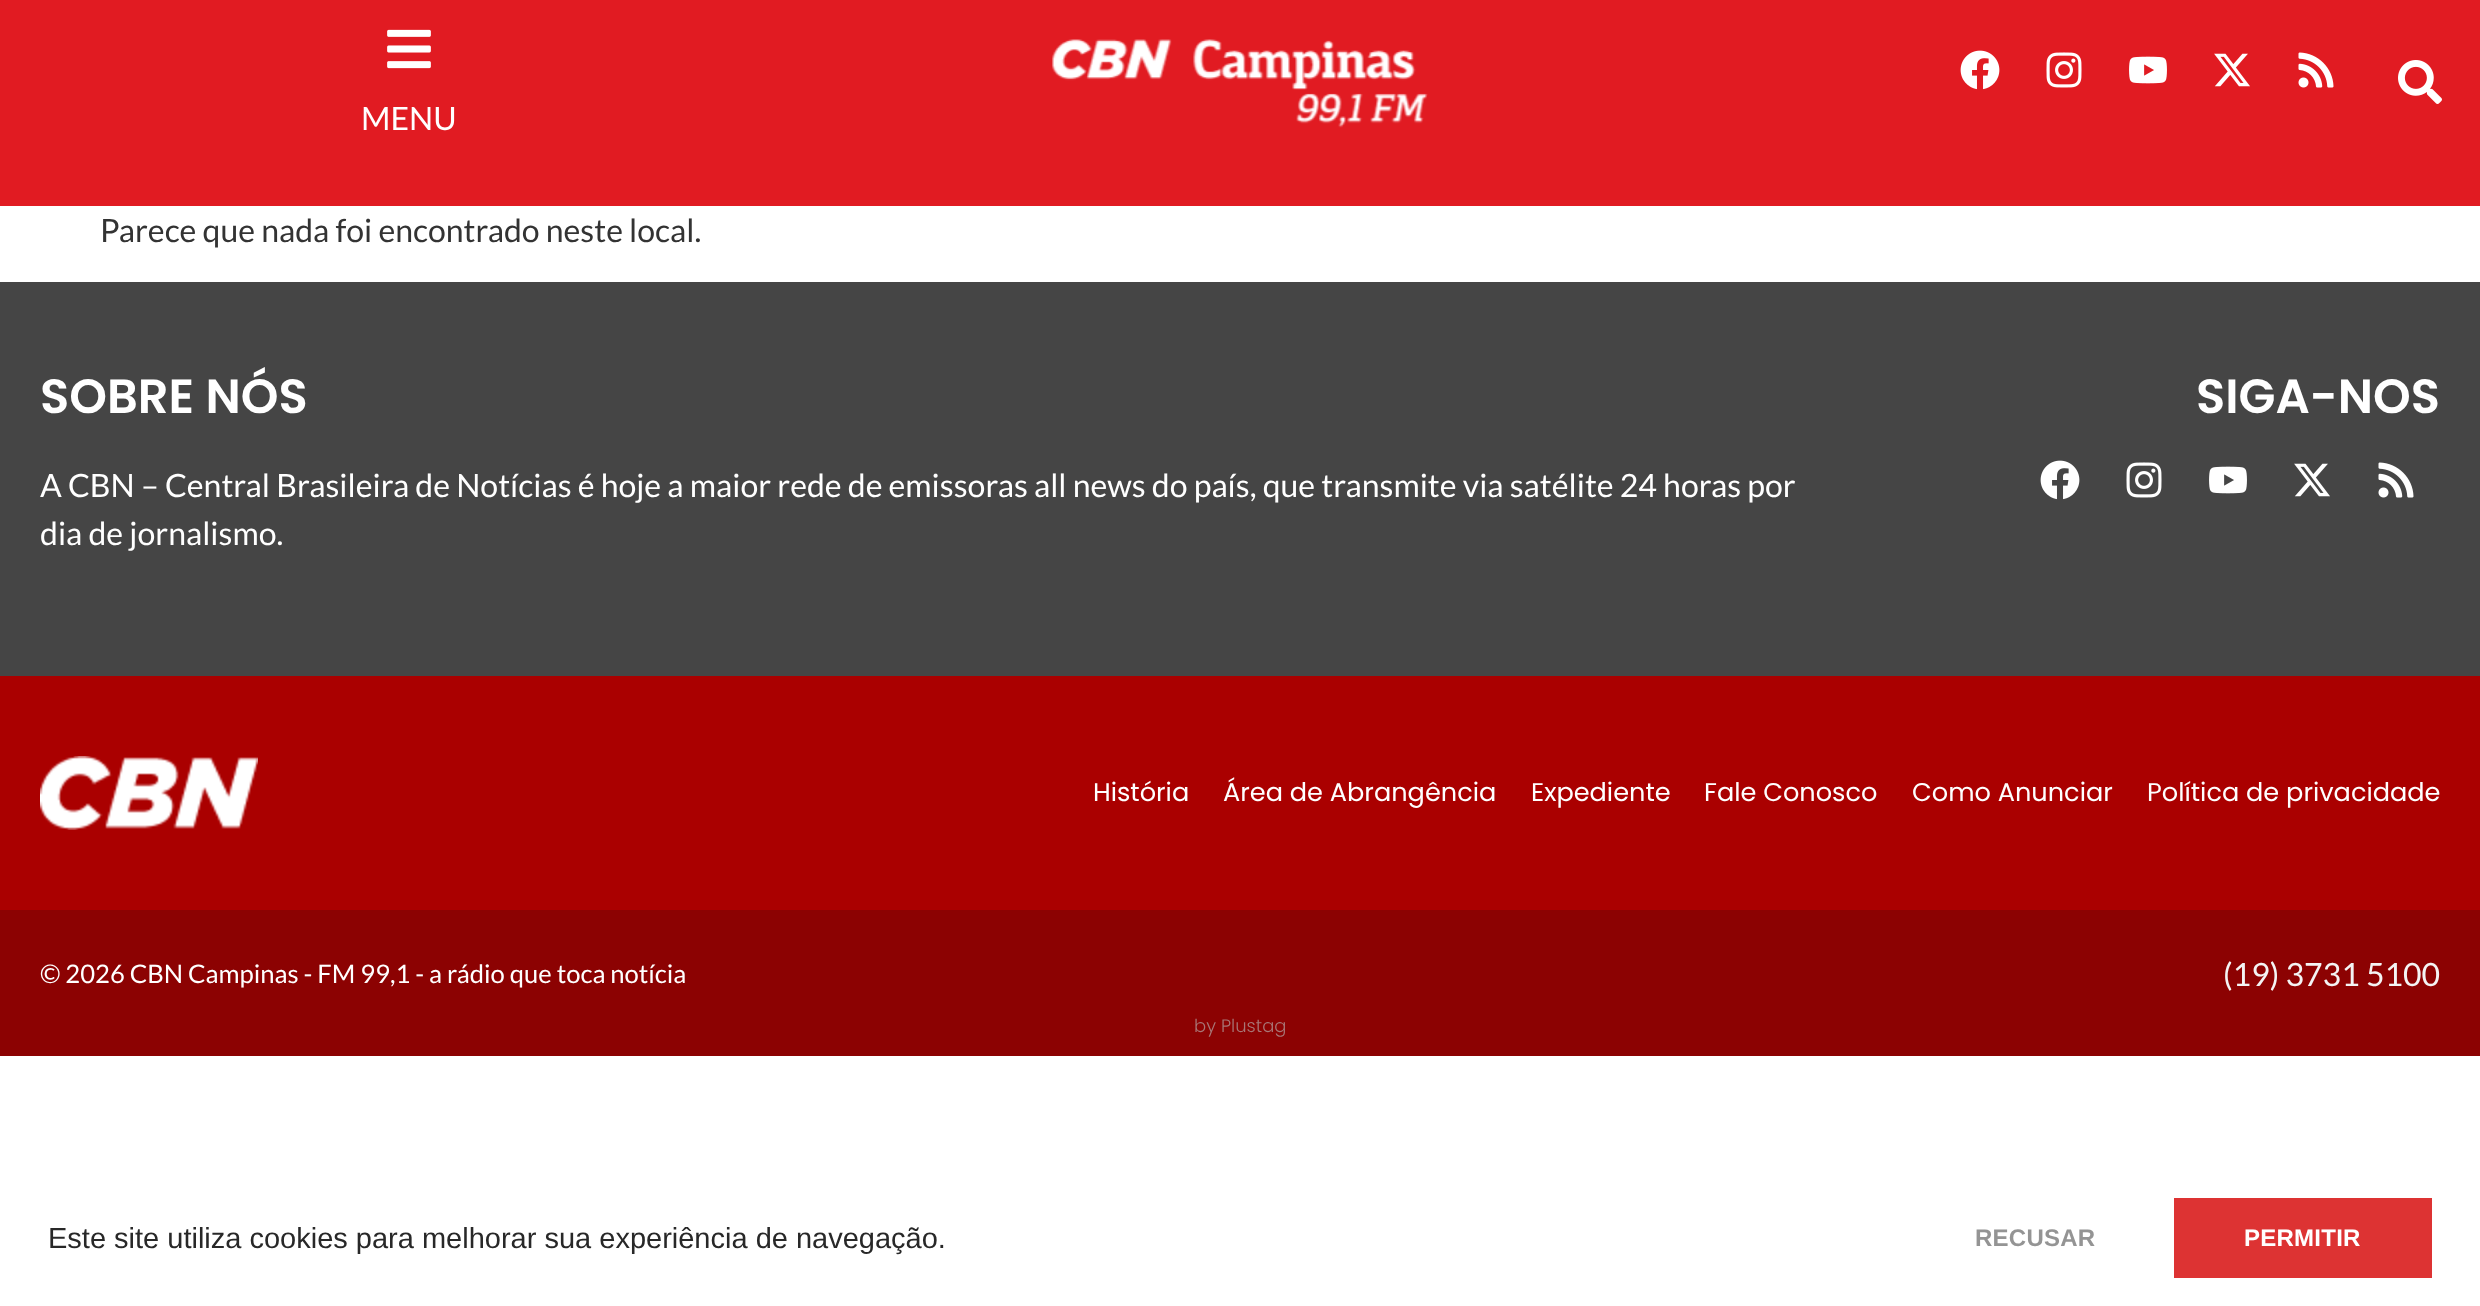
<?xml version="1.0" encoding="UTF-8"?>
<svg xmlns="http://www.w3.org/2000/svg" width="2480" height="1306">
    <rect width="100%" height="100%" fill="#FFFFFF"/>
    <rect x="0" y="0" width="2480" height="206" fill="#E11B22"/>
    <image x="1052" y="39" width="376" height="89" href="img_01.png"/>
    <image x="1960" y="50" width="40" height="40" href="img_02.png"/>
    <image x="2046" y="52" width="36" height="36" href="img_03.png"/>
    <image x="2129" y="56" width="38" height="28" href="img_04.png"/>
    <image x="2214" y="53" width="36" height="34" href="img_05.png"/>
    <image x="2298" y="52" width="36" height="36" href="img_06.png"/>
    <image x="2398" y="60" width="44" height="44" href="img_07.png"/>
    <image x="387" y="29" width="44" height="40" href="img_08.png"/>
    <text x="361" y="130" font-family="Lato" font-size="32" fill="#FFFFFF">MENU</text>
    <text x="100" y="242" font-family="Lato" font-size="32" fill="#333333">Parece que nada foi encontrado neste local.</text>
    <rect x="0" y="282" width="2480" height="394" fill="#454545"/>
    <text x="40" y="413" font-family="Poppins" font-size="48" font-weight="600" fill="#FFFFFF">SOBRE NÓS</text>
    <text font-family="Lato" font-size="32" fill="#FFFFFF">
        <tspan x="40" y="497">A CBN – Central Brasileira de Notícias é hoje a maior rede de emissoras all news do país, que transmite via satélite 24 horas por</tspan>
        <tspan x="40" y="545">dia de jornalismo.</tspan>
    </text>
    <text x="2196" y="413" font-family="Poppins" font-size="48" font-weight="600" fill="#FFFFFF">SIGA-NOS</text>
    <image x="2040" y="460" width="40" height="40" href="img_09.png"/>
    <image x="2126" y="462" width="36" height="36" href="img_10.png"/>
    <image x="2209" y="466" width="38" height="28" href="img_11.png"/>
    <image x="2294" y="463" width="36" height="34" href="img_12.png"/>
    <image x="2378" y="462" width="36" height="36" href="img_13.png"/>
    <rect x="0" y="676" width="2480" height="234" fill="#AA0000"/>
    <image x="40" y="756" width="218" height="74" href="img_14.png"/>
    <text x="1093" y="801" font-family="Poppins" font-size="25.6" fill="#FFFFFF">História</text>
    <text x="1223" y="801" font-family="Poppins" font-size="25.6" fill="#FFFFFF">Área de Abrangência</text>
    <text x="1531" y="801" font-family="Poppins" font-size="25.6" fill="#FFFFFF">Expediente</text>
    <text x="1704" y="801" font-family="Poppins" font-size="25.6" fill="#FFFFFF">Fale Conosco</text>
    <text x="1912" y="801" font-family="Poppins" font-size="25.6" fill="#FFFFFF">Como Anunciar</text>
    <text x="2147" y="801" font-family="Poppins" font-size="25.6" fill="#FFFFFF">Política de privacidade</text>
    <rect x="0" y="910" width="2480" height="146" fill="#8C0202"/>
    <text x="40" y="983" font-family="Lato" font-size="25.6" fill="#FFFFFF">© 2026 CBN Campinas - FM 99,1 - a rádio que toca notícia</text>
    <text x="2223" y="986" font-family="Lato" font-size="32" fill="#F4F4F4">(19) 3731 5100</text>
    <text x="1194" y="1032" font-family="Poppins" font-size="18" font-weight="300" fill="#A87676">by Plustag</text>
    <text x="48" y="1248" font-family="Liberation Sans" font-size="29" fill="#282828">Este site utiliza cookies para melhorar sua experiência de navegação.</text>
    <text x="1975" y="1246" font-family="Liberation Sans" font-size="24" font-weight="700" letter-spacing="0.25" fill="#949494">RECUSAR</text>
    <rect x="2174" y="1198" width="258" height="80" fill="#DD3333"/>
    <text x="2244" y="1246" font-family="Liberation Sans" font-size="24" font-weight="700" letter-spacing="0.25" fill="#FFFFFF">PERMITIR</text>
</svg>
